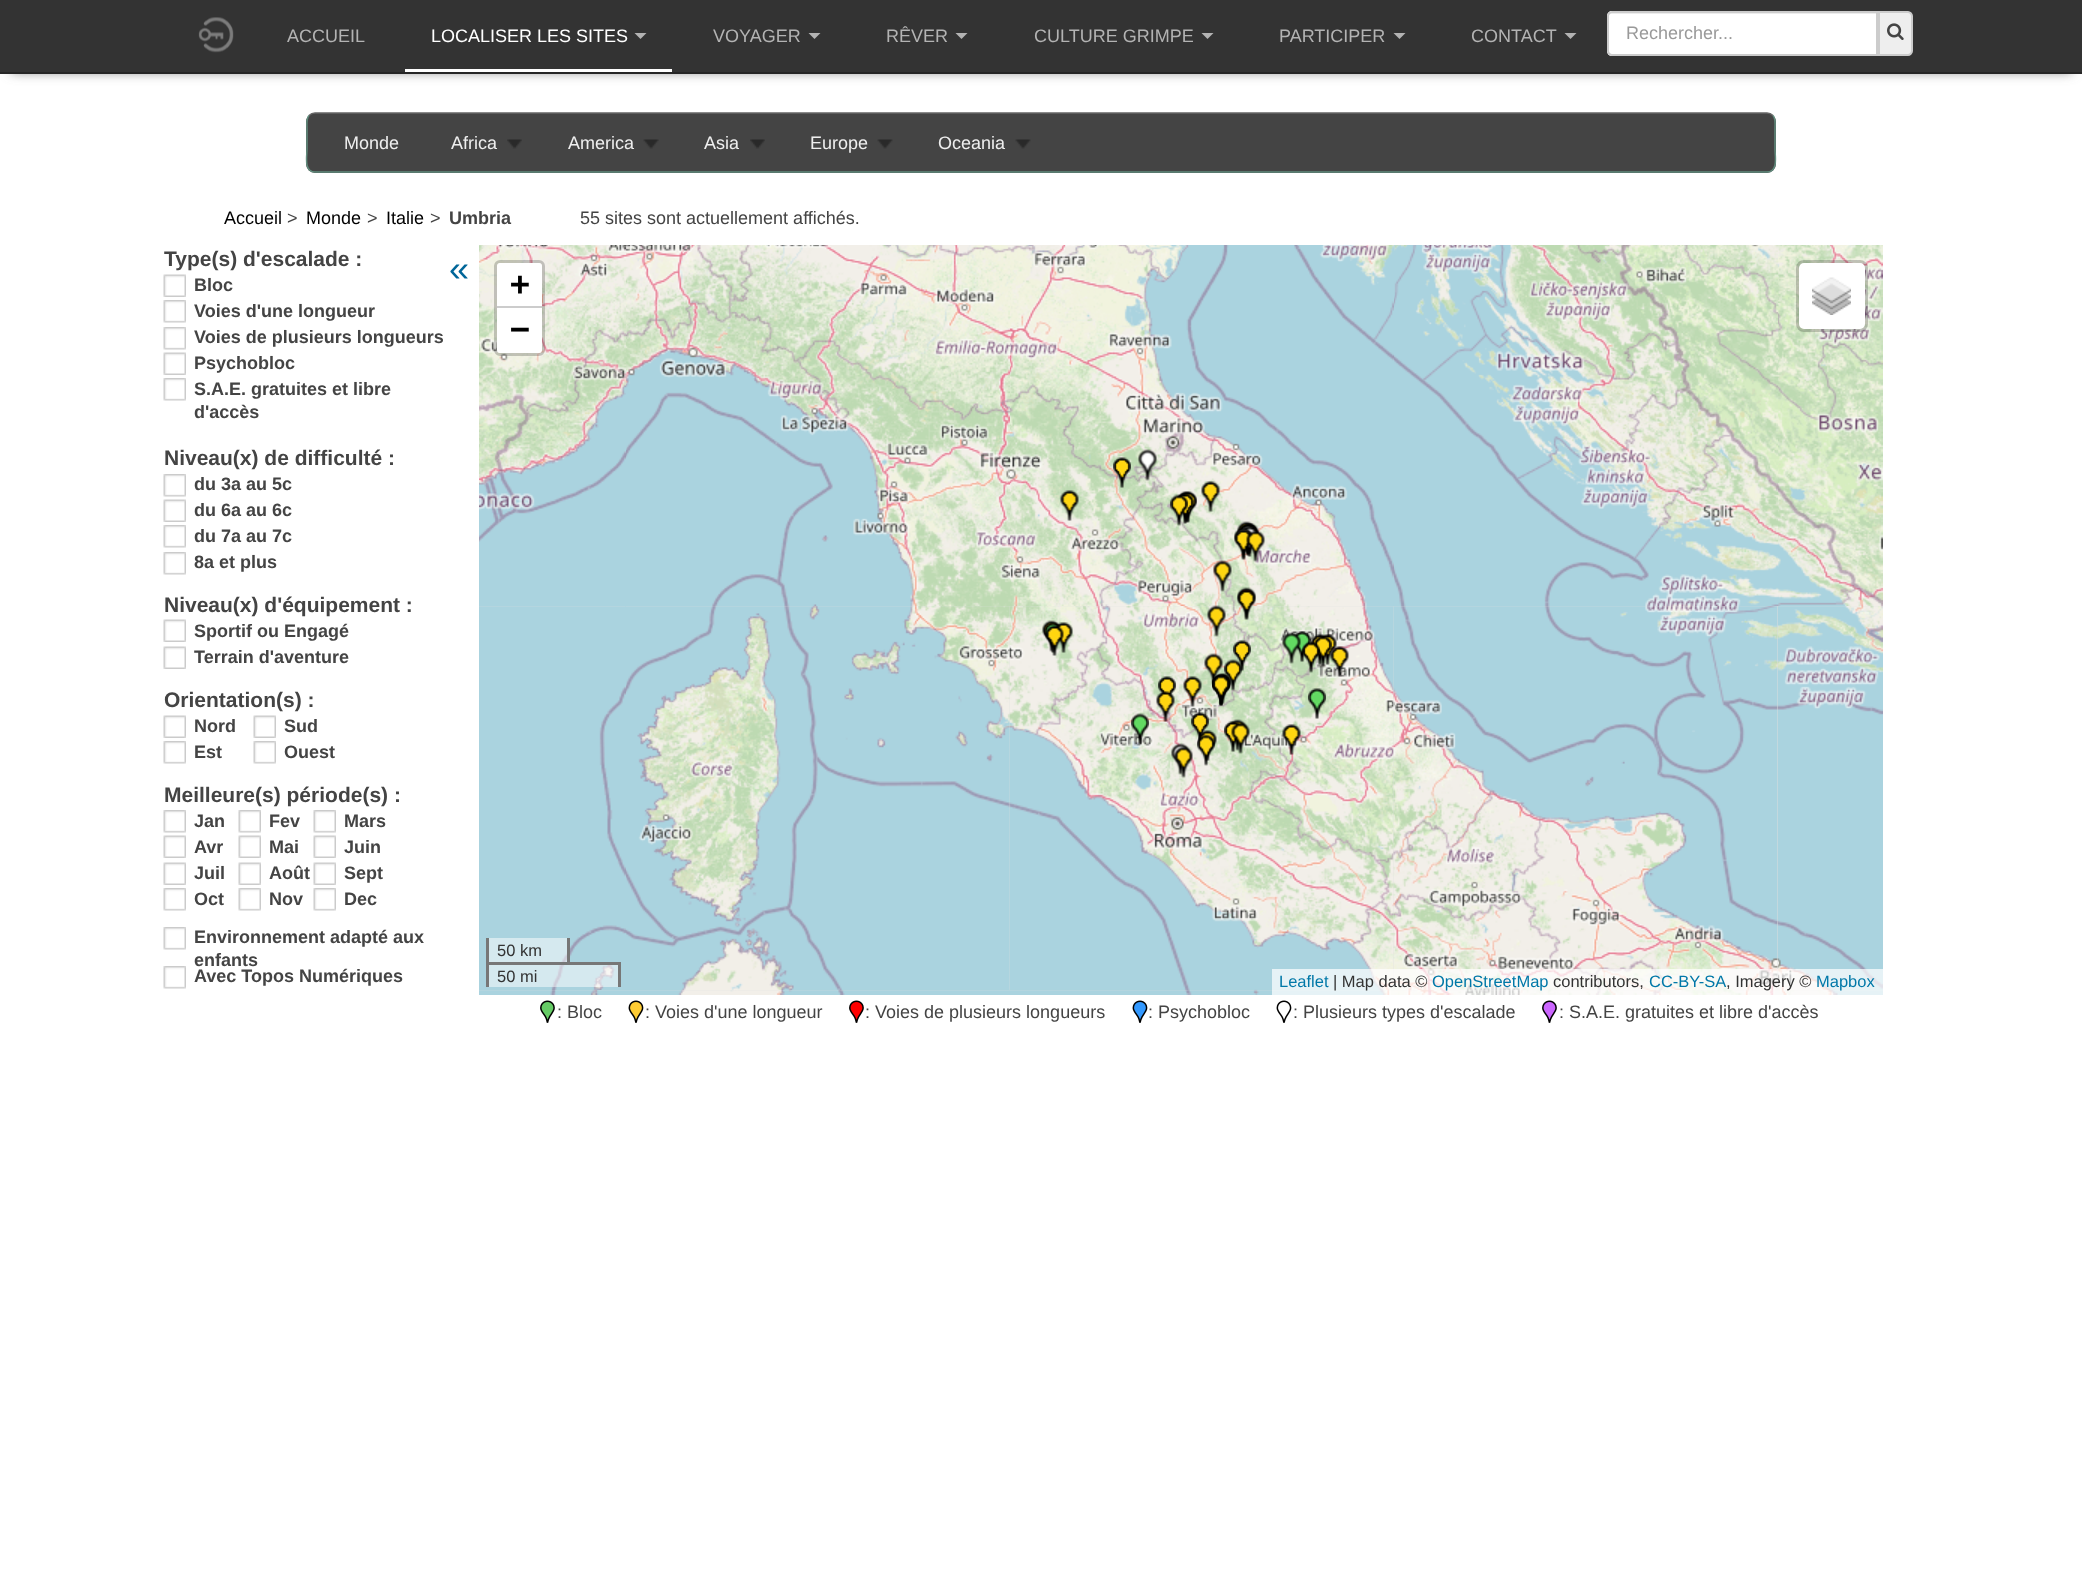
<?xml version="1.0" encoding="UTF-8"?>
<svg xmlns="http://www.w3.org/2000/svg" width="2082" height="1578">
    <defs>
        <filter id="blur1" x="-50%" y="-200%" width="200%" height="500%"><feGaussianBlur stdDeviation="6"/></filter>
    </defs>
    <rect width="100%" height="100%" fill="#FFFFFF"/>
    <rect x="11" y="20" width="2061" height="52" fill="#808080" filter="url(#blur1)"/>
    <rect x="0" y="0" width="2082" height="72" fill="#333333"/>
    <rect x="0" y="72" width="2082" height="2" fill="#262626"/>
    <text x="287" y="42" font-family="Liberation Sans" font-size="18" fill="#B3B3B3">ACCUEIL</text>
    <rect x="405" y="69" width="267" height="3" fill="#FFFFFF"/>
    <text x="431" y="42" font-family="Liberation Sans" font-size="18" fill="#FFFFFF">LOCALISER LES SITES</text>
    <path d="M 634.5 33 H 646.5 L 640.5 39 Z" fill="#B3B3B3"/>
    <text x="713" y="42" font-family="Liberation Sans" font-size="18" fill="#B3B3B3">VOYAGER</text>
    <path d="M 808.5 33 H 820.5 L 814.5 39 Z" fill="#B3B3B3"/>
    <text x="886" y="42" font-family="Liberation Sans" font-size="18" fill="#B3B3B3">RÊVER</text>
    <path d="M 955.5 33 H 967.5 L 961.5 39 Z" fill="#B3B3B3"/>
    <text x="1034" y="42" font-family="Liberation Sans" font-size="18" fill="#B3B3B3">CULTURE GRIMPE</text>
    <path d="M 1201.5 33 H 1213.5 L 1207.5 39 Z" fill="#B3B3B3"/>
    <text x="1279" y="42" font-family="Liberation Sans" font-size="18" fill="#B3B3B3">PARTICIPER</text>
    <path d="M 1393.5 33 H 1405.5 L 1399.5 39 Z" fill="#B3B3B3"/>
    <text x="1471" y="42" font-family="Liberation Sans" font-size="18" fill="#B3B3B3">CONTACT</text>
    <path d="M 1564.5 33 H 1576.5 L 1570.5 39 Z" fill="#B3B3B3"/>
    <image x="198" y="17" width="36" height="36" href="img_01.png"/>
    <path d="M 1612 11 H 1878 V 56 H 1612 C 1609 56 1607 54 1607 51 V 16 C 1607 13 1609 11 1612 11 Z" fill="#FFFFFF"/>
    <path d="M 1611 14 H 1876 V 54 H 1877 V 12 H 1611 C 1609 12 1608 13 1608 15 V 16 C 1608 15 1609 14 1611 14 Z" fill="#ECECEC"/>
    <path d="M 1612 12 H 1877 V 55 H 1612 C 1610 55 1608 53 1608 51 V 16 C 1608 14 1610 12 1612 12 Z" fill="none" stroke="#CCCCCC" stroke-width="2"/>
    <text x="1626" y="39" font-family="Liberation Sans" font-size="18" fill="#999999">Rechercher...</text>
    <path d="M 1879 12 H 1908 C 1910 12 1912 14 1912 16 V 51 C 1912 53 1910 55 1908 55 H 1879 Z" fill="#EEEEEE" stroke="#CCCCCC" stroke-width="2"/>
    <image x="1887" y="23" width="17" height="17" href="img_02.png"/>
    <rect x="306" y="113" width="1470" height="60" rx="9" fill="#444444"/>
    <path d="M 309 115.5 C 310.5 114 313 113 315 113 H 1767 C 1769 113 1771.5 114 1773 115.5" fill="none" stroke="#666666" stroke-width="1.5"/>
    <path d="M 1773 115.5 C 1776 119 1775 124 1775 128.5 V 149.5 C 1775 156 1778.5 171.5 1767 172 H 315 C 303.5 171.5 307 156 307 149.5 V 128.5 C 307 124 306 119 309 115.5" fill="none" stroke="#608C7D" stroke-width="1.5"/>
    <text x="344" y="149" font-family="Liberation Sans" font-size="18" fill="#EEEEEE">Monde</text>
    <image x="507" y="139" width="15" height="10" href="img_03.png"/>
    <text x="451" y="149" font-family="Liberation Sans" font-size="18" fill="#EEEEEE">Africa</text>
    <image x="643" y="139" width="16" height="10" href="img_04.png"/>
    <text x="568" y="149" font-family="Liberation Sans" font-size="18" fill="#EEEEEE">America</text>
    <image x="750" y="139" width="15" height="10" href="img_05.png"/>
    <text x="704" y="149" font-family="Liberation Sans" font-size="18" fill="#EEEEEE">Asia</text>
    <image x="877" y="139" width="16" height="10" href="img_06.png"/>
    <text x="810" y="149" font-family="Liberation Sans" font-size="18" fill="#EEEEEE">Europe</text>
    <image x="1015" y="139" width="16" height="10" href="img_06.png"/>
    <text x="938" y="149" font-family="Liberation Sans" font-size="18" fill="#EEEEEE">Oceania</text>
    <text x="224" y="224" font-family="Liberation Sans" font-size="18" fill="#000000">Accueil</text>
    <text x="287" y="224" font-family="Liberation Sans" font-size="18" fill="#444444">&gt;</text>
    <text x="306" y="224" font-family="Liberation Sans" font-size="18" fill="#000000">Monde</text>
    <text x="367" y="224" font-family="Liberation Sans" font-size="18" fill="#444444">&gt;</text>
    <text x="386" y="224" font-family="Liberation Sans" font-size="18" fill="#000000">Italie</text>
    <text x="430" y="224" font-family="Liberation Sans" font-size="18" fill="#444444">&gt;</text>
    <text x="449" y="224" font-family="Liberation Sans" font-size="18" font-weight="700" fill="#444444">Umbria</text>
    <text x="580" y="224" font-family="Liberation Sans" font-size="18" fill="#444444">55 sites sont actuellement affichés.</text>
    <text x="164" y="266" font-family="Liberation Sans" font-size="21" font-weight="700" fill="#444444">Type(s) d'escalade :</text>
    <image x="163" y="274" width="23" height="23" href="img_07.png"/>
    <text x="194" y="291" font-family="Liberation Sans" font-size="18" font-weight="700" fill="#444444">Bloc</text>
    <image x="163" y="300" width="23" height="23" href="img_08.png"/>
    <text x="194" y="317" font-family="Liberation Sans" font-size="18" font-weight="700" fill="#444444">Voies d'une longueur</text>
    <image x="163" y="327" width="23" height="23" href="img_08.png"/>
    <text x="194" y="343" font-family="Liberation Sans" font-size="18" font-weight="700" fill="#444444">Voies de plusieurs longueurs</text>
    <image x="163" y="352" width="23" height="23" href="img_07.png"/>
    <text x="194" y="369" font-family="Liberation Sans" font-size="18" font-weight="700" fill="#444444">Psychobloc</text>
    <image x="163" y="378" width="23" height="23" href="img_08.png"/>
    <text font-family="Liberation Sans" font-size="18" font-weight="700" fill="#444444">
        <tspan x="194" y="395">S.A.E. gratuites et libre</tspan>
        <tspan x="194" y="418">d'accès</tspan>
    </text>
    <text x="164" y="465" font-family="Liberation Sans" font-size="21" font-weight="700" fill="#444444">Niveau(x) de difficulté :</text>
    <image x="163" y="474" width="23" height="23" href="img_08.png"/>
    <text x="194" y="490" font-family="Liberation Sans" font-size="18" font-weight="700" fill="#444444">du 3a au 5c</text>
    <image x="163" y="499" width="23" height="23" href="img_07.png"/>
    <text x="194" y="516" font-family="Liberation Sans" font-size="18" font-weight="700" fill="#444444">du 6a au 6c</text>
    <image x="163" y="525" width="23" height="23" href="img_08.png"/>
    <text x="194" y="542" font-family="Liberation Sans" font-size="18" font-weight="700" fill="#444444">du 7a au 7c</text>
    <image x="163" y="552" width="23" height="23" href="img_08.png"/>
    <text x="194" y="568" font-family="Liberation Sans" font-size="18" font-weight="700" fill="#444444">8a et plus</text>
    <text x="164" y="612" font-family="Liberation Sans" font-size="21" font-weight="700" fill="#444444">Niveau(x) d'équipement :</text>
    <image x="163" y="619" width="23" height="23" href="img_07.png"/>
    <text x="194" y="637" font-family="Liberation Sans" font-size="18" font-weight="700" fill="#444444">Sportif ou Engagé</text>
    <image x="163" y="646" width="23" height="23" href="img_07.png"/>
    <text x="194" y="663" font-family="Liberation Sans" font-size="18" font-weight="700" fill="#444444">Terrain d'aventure</text>
    <text x="164" y="707" font-family="Liberation Sans" font-size="21" font-weight="700" fill="#444444">Orientation(s) :</text>
    <image x="163" y="715" width="23" height="23" href="img_07.png"/>
    <text x="194" y="732" font-family="Liberation Sans" font-size="18" font-weight="700" fill="#444444">Nord</text>
    <image x="253" y="715" width="23" height="23" href="img_07.png"/>
    <text x="284" y="732" font-family="Liberation Sans" font-size="18" font-weight="700" fill="#444444">Sud</text>
    <image x="163" y="741" width="23" height="23" href="img_08.png"/>
    <text x="194" y="758" font-family="Liberation Sans" font-size="18" font-weight="700" fill="#444444">Est</text>
    <image x="253" y="741" width="23" height="23" href="img_08.png"/>
    <text x="284" y="758" font-family="Liberation Sans" font-size="18" font-weight="700" fill="#444444">Ouest</text>
    <text x="164" y="802" font-family="Liberation Sans" font-size="21" font-weight="700" fill="#444444">Meilleure(s) période(s) :</text>
    <image x="163" y="810" width="23" height="23" href="img_08.png"/>
    <text x="194" y="827" font-family="Liberation Sans" font-size="18" font-weight="700" fill="#444444">Jan</text>
    <image x="238" y="810" width="23" height="23" href="img_08.png"/>
    <text x="269" y="827" font-family="Liberation Sans" font-size="18" font-weight="700" fill="#444444">Fev</text>
    <image x="313" y="810" width="23" height="23" href="img_08.png"/>
    <text x="344" y="827" font-family="Liberation Sans" font-size="18" font-weight="700" fill="#444444">Mars</text>
    <image x="163" y="835" width="23" height="23" href="img_07.png"/>
    <text x="194" y="853" font-family="Liberation Sans" font-size="18" font-weight="700" fill="#444444">Avr</text>
    <image x="238" y="835" width="23" height="23" href="img_07.png"/>
    <text x="269" y="853" font-family="Liberation Sans" font-size="18" font-weight="700" fill="#444444">Mai</text>
    <image x="313" y="835" width="23" height="23" href="img_07.png"/>
    <text x="344" y="853" font-family="Liberation Sans" font-size="18" font-weight="700" fill="#444444">Juin</text>
    <image x="163" y="862" width="23" height="23" href="img_07.png"/>
    <text x="194" y="879" font-family="Liberation Sans" font-size="18" font-weight="700" fill="#444444">Juil</text>
    <image x="238" y="862" width="23" height="23" href="img_07.png"/>
    <text x="269" y="879" font-family="Liberation Sans" font-size="18" font-weight="700" fill="#444444">Août</text>
    <image x="313" y="862" width="23" height="23" href="img_07.png"/>
    <text x="344" y="879" font-family="Liberation Sans" font-size="18" font-weight="700" fill="#444444">Sept</text>
    <image x="163" y="888" width="23" height="23" href="img_08.png"/>
    <text x="194" y="905" font-family="Liberation Sans" font-size="18" font-weight="700" fill="#444444">Oct</text>
    <image x="238" y="888" width="23" height="23" href="img_08.png"/>
    <text x="269" y="905" font-family="Liberation Sans" font-size="18" font-weight="700" fill="#444444">Nov</text>
    <image x="313" y="888" width="23" height="23" href="img_08.png"/>
    <text x="344" y="905" font-family="Liberation Sans" font-size="18" font-weight="700" fill="#444444">Dec</text>
    <image x="163" y="927" width="23" height="23" href="img_08.png"/>
    <text font-family="Liberation Sans" font-size="18" font-weight="700" fill="#444444">
        <tspan x="194" y="943">Environnement adapté aux</tspan>
        <tspan x="194" y="966">enfants</tspan>
    </text>
    <image x="163" y="966" width="23" height="23" href="img_08.png"/>
    <text x="194" y="982" font-family="Liberation Sans" font-size="18" font-weight="700" fill="#444444">Avec Topos Numériques</text>
    <text x="449" y="281" font-family="Liberation Sans" font-size="36" fill="#006699">«</text>
    <rect x="479" y="606" width="1404" height="385" fill="#DDDDDD"/>
    <image x="479" y="245" width="147" height="361" href="img_09.png"/>
    <image x="626" y="245" width="384" height="361" href="img_10.png"/>
    <image x="1010" y="245" width="384" height="361" href="img_11.png"/>
    <image x="1009" y="606" width="385" height="384" href="img_16.png"/>
    <image x="1393" y="605" width="385" height="385" href="img_17.png"/>
    <image x="1394" y="245" width="384" height="361" href="img_12.png"/>
    <image x="1778" y="245" width="105" height="361" href="img_13.png"/>
    <image x="625" y="606" width="385" height="384" href="img_15.png"/>
    <image x="479" y="606" width="147" height="384" href="img_14.png"/>
    <image x="1778" y="606" width="105" height="384" href="img_18.png"/>
    <image x="479" y="989" width="147" height="6" href="img_19.png"/>
    <image x="626" y="989" width="384" height="6" href="img_20.png"/>
    <image x="1010" y="989" width="384" height="6" href="img_21.png"/>
    <image x="1394" y="989" width="384" height="6" href="img_22.png"/>
    <image x="1778" y="989" width="105" height="6" href="img_23.png"/>
    <image x="1113" y="457" width="18" height="31" href="img_24.png"/>
    <image x="1138" y="449" width="19" height="32" href="img_25.png"/>
    <image x="1060" y="490" width="19" height="31" href="img_26.png"/>
    <image x="1177" y="491" width="19" height="32" href="img_27.png"/>
    <image x="1201" y="481" width="19" height="31" href="img_28.png"/>
    <image x="1177" y="491" width="19" height="32" href="img_29.png"/>
    <image x="1179" y="491" width="18" height="32" href="img_30.png"/>
    <image x="1176" y="493" width="18" height="31" href="img_31.png"/>
    <image x="1170" y="494" width="18" height="32" href="img_32.png"/>
    <image x="1237" y="521" width="19" height="32" href="img_33.png"/>
    <image x="1240" y="523" width="19" height="31" href="img_35.png"/>
    <image x="1239" y="523" width="18" height="31" href="img_34.png"/>
    <image x="1239" y="526" width="18" height="30" href="img_36.png"/>
    <image x="1239" y="526" width="18" height="30" href="img_37.png"/>
    <image x="1241" y="526" width="18" height="31" href="img_38.png"/>
    <image x="1234" y="527" width="19" height="32" href="img_39.png"/>
    <image x="1234" y="529" width="18" height="31" href="img_40.png"/>
    <image x="1246" y="530" width="19" height="32" href="img_41.png"/>
    <image x="1213" y="560" width="19" height="32" href="img_42.png"/>
    <image x="1237" y="587" width="19" height="32" href="img_43.png"/>
    <image x="1042" y="620" width="18" height="32" href="img_44.png"/>
    <image x="1207" y="605" width="19" height="32" href="img_45.png"/>
    <image x="1237" y="589" width="19" height="31" href="img_46.png"/>
    <image x="1044" y="622" width="16" height="31" href="img_47.png"/>
    <image x="1054" y="622" width="19" height="31" href="img_48.png"/>
    <image x="1045" y="625" width="19" height="31" href="img_49.png"/>
    <image x="1293" y="631" width="18" height="31" href="img_51.png"/>
    <image x="1282" y="632" width="19" height="32" href="img_50.png"/>
    <image x="1311" y="634" width="16" height="31" href="img_52.png"/>
    <image x="1318" y="634" width="19" height="31" href="img_53.png"/>
    <image x="1204" y="653" width="19" height="32" href="img_54.png"/>
    <image x="1233" y="640" width="18" height="31" href="img_55.png"/>
    <image x="1314" y="635" width="18" height="32" href="img_57.png"/>
    <image x="1302" y="641" width="18" height="32" href="img_56.png"/>
    <image x="1330" y="646" width="19" height="31" href="img_58.png"/>
    <image x="1224" y="659" width="18" height="32" href="img_60.png"/>
    <image x="1213" y="673" width="19" height="31" href="img_59.png"/>
    <image x="1212" y="674" width="18" height="32" href="img_61.png"/>
    <image x="1212" y="674" width="18" height="32" href="img_62.png"/>
    <image x="1212" y="674" width="18" height="32" href="img_63.png"/>
    <image x="1158" y="676" width="18" height="21" href="img_64.png"/>
    <image x="1183" y="676" width="19" height="31" href="img_65.png"/>
    <image x="1212" y="674" width="18" height="32" href="img_66.png"/>
    <image x="1308" y="688" width="18" height="31" href="img_67.png"/>
    <image x="1156" y="691" width="19" height="31" href="img_68.png"/>
    <image x="1131" y="713" width="18" height="32" href="img_69.png"/>
    <image x="1191" y="712" width="18" height="31" href="img_70.png"/>
    <image x="1228" y="719" width="19" height="32" href="img_71.png"/>
    <image x="1224" y="721" width="18" height="31" href="img_72.png"/>
    <image x="1198" y="730" width="19" height="31" href="img_73.png"/>
    <image x="1231" y="722" width="19" height="32" href="img_74.png"/>
    <image x="1282" y="724" width="19" height="31" href="img_75.png"/>
    <image x="1171" y="743" width="19" height="32" href="img_76.png"/>
    <image x="1197" y="734" width="18" height="32" href="img_77.png"/>
    <image x="1174" y="746" width="19" height="32" href="img_78.png"/>
    <rect x="495.5" y="261.5" width="48" height="93" rx="4.5" fill="none" stroke="#000000" stroke-opacity="0.2" stroke-width="3"/>
    <path d="M 500 263 H 539 C 540.5 263 542 264.5 542 266 V 308 H 497 V 266 C 497 264.5 498.5 263 500 263 Z" fill="#FFFFFF"/>
    <rect x="497" y="306" width="45" height="2" fill="#CCCCCC"/>
    <text x="510" y="295" font-family="DejaVu Sans Mono" font-size="33" font-weight="700" fill="#000000">+</text>
    <path d="M 497 308 H 542 V 350 C 542 351.5 540.5 353 539 353 H 500 C 498.5 353 497 351.5 497 350 Z" fill="#FFFFFF"/>
    <text x="510" y="340" font-family="DejaVu Sans Mono" font-size="33" font-weight="700" fill="#000000">−</text>
    <rect x="1799" y="263" width="66" height="66" rx="5" fill="#FFFFFF"/>
    <rect x="1797.5" y="261.5" width="69" height="69" rx="6.5" fill="none" stroke="#000000" stroke-opacity="0.2" stroke-width="3"/>
    <image x="1812" y="277" width="39" height="38" href="img_79.png"/>
    <rect x="489" y="938" width="78" height="24" fill="#FFFFFF" fill-opacity="0.5"/>
    <rect x="567" y="938" width="3" height="27" fill="#777777"/>
    <rect x="486" y="938" width="3" height="27" fill="#777777"/>
    <text x="497" y="956" font-family="Liberation Sans" font-size="16.5" fill="#333333">50 km</text>
    <rect x="489" y="965" width="129" height="22" fill="#FFFFFF" fill-opacity="0.5"/>
    <rect x="486" y="962" width="135" height="3" fill="#777777"/>
    <rect x="618" y="962" width="3" height="25" fill="#777777"/>
    <rect x="486" y="962" width="3" height="25" fill="#777777"/>
    <text x="497" y="982" font-family="Liberation Sans" font-size="16.5" fill="#333333">50 mi</text>
    <rect x="1272" y="969" width="611" height="26" fill="#FFFFFF" fill-opacity="0.7"/>
    <text x="1279" y="987" font-family="Liberation Sans" font-size="16.5" fill="#0078A8">Leaflet</text>
    <text x="1333" y="987" font-family="Liberation Sans" font-size="16.5" fill="#333333">| Map data ©</text>
    <text x="1432" y="987" font-family="Liberation Sans" font-size="16.5" fill="#0078A8">OpenStreetMap</text>
    <text x="1553" y="987" font-family="Liberation Sans" font-size="16.5" fill="#333333">contributors,</text>
    <text x="1649" y="987" font-family="Liberation Sans" font-size="16.5" fill="#0078A8">CC-BY-SA</text>
    <text x="1726" y="987" font-family="Liberation Sans" font-size="16.5" fill="#333333">, Imagery ©</text>
    <text x="1816" y="987" font-family="Liberation Sans" font-size="16.5" fill="#0078A8">Mapbox</text>
    <image x="540" y="1000" width="15" height="23" href="img_80.png"/>
    <text x="557" y="1018" font-family="Liberation Sans" font-size="18" fill="#444444">: Bloc</text>
    <image x="628" y="1000" width="16" height="23" href="img_81.png"/>
    <text x="645" y="1018" font-family="Liberation Sans" font-size="18" fill="#444444">: Voies d'une longueur</text>
    <image x="849" y="1000" width="15" height="23" href="img_82.png"/>
    <text x="865" y="1018" font-family="Liberation Sans" font-size="18" fill="#444444">: Voies de plusieurs longueurs</text>
    <image x="1132" y="1000" width="16" height="23" href="img_83.png"/>
    <text x="1148" y="1018" font-family="Liberation Sans" font-size="18" fill="#444444">: Psychobloc</text>
    <image x="1276" y="1000" width="16" height="23" href="img_84.png"/>
    <text x="1293" y="1018" font-family="Liberation Sans" font-size="18" fill="#444444">: Plusieurs types d'escalade</text>
    <image x="1542" y="1000" width="15" height="23" href="img_85.png"/>
    <text x="1559" y="1018" font-family="Liberation Sans" font-size="18" fill="#444444">: S.A.E. gratuites et libre d'accès</text>
</svg>
